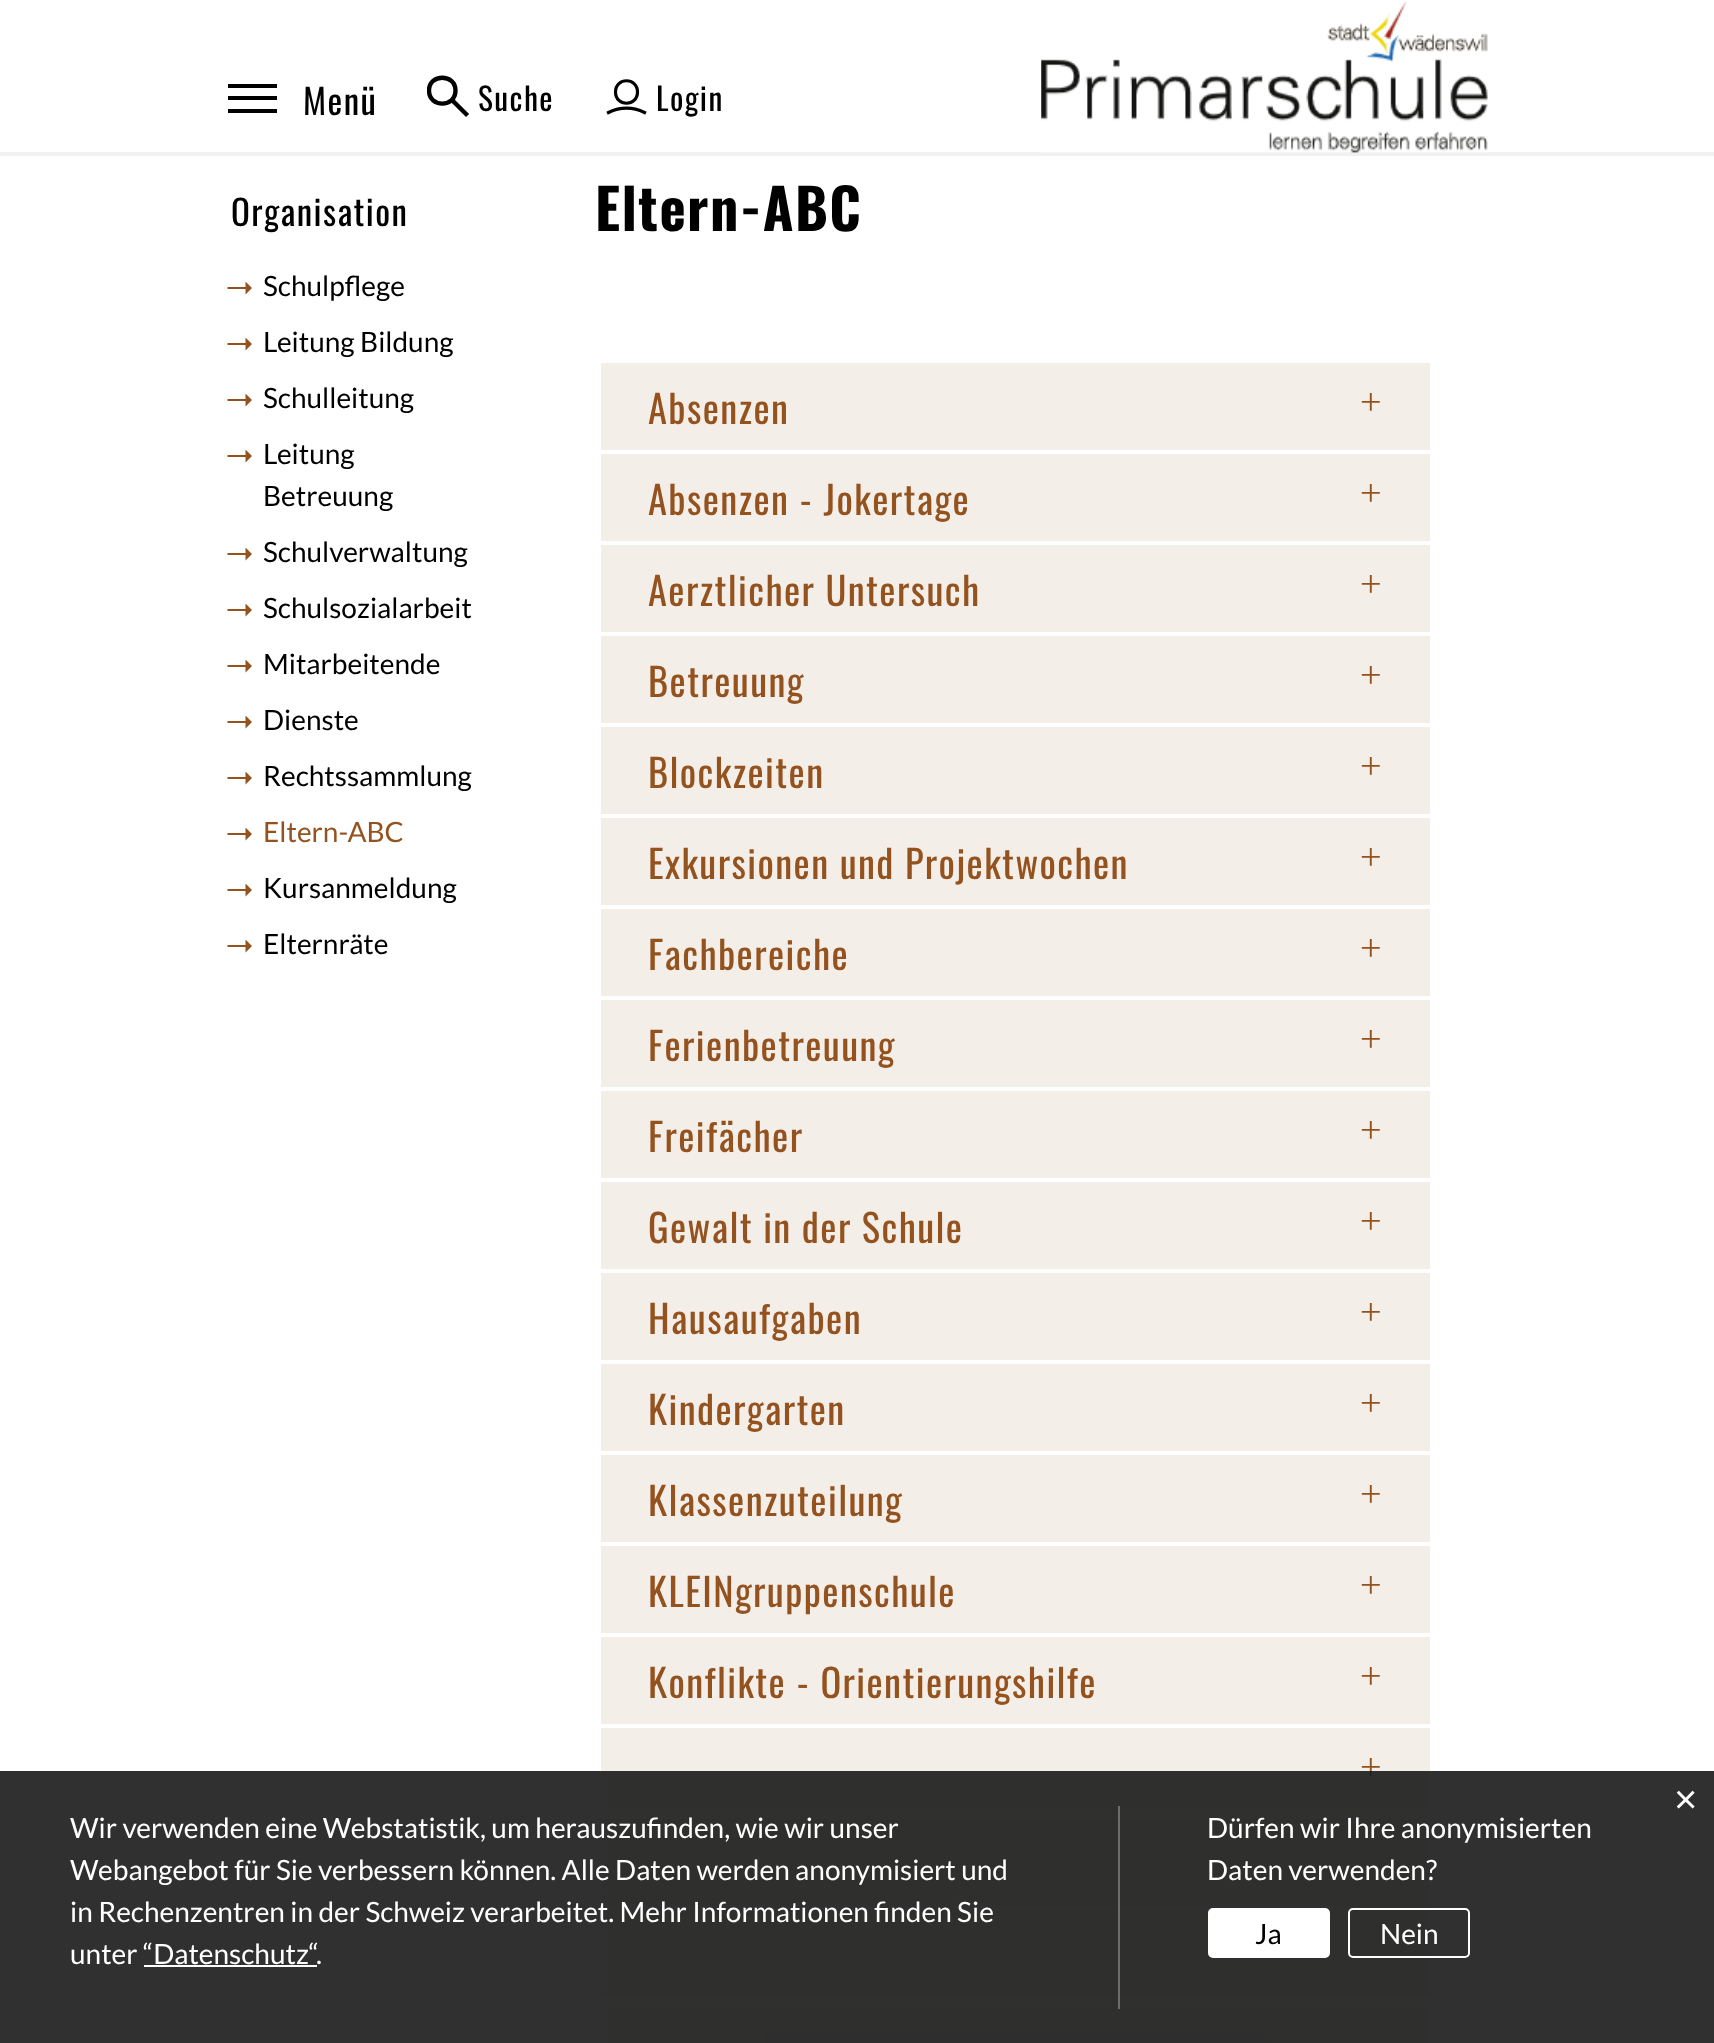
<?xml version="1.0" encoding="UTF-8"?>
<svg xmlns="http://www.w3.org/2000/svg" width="1714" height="2043">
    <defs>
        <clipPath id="clip1"><rect x="427" y="75" width="42" height="42"/></clipPath>
    </defs>
    <rect width="100%" height="100%" fill="#FFFFFF"/>
    <rect x="0" y="152" width="1714" height="4" fill="#F1F1F1"/>
    <rect x="228" y="84" width="49" height="4" fill="#000000"/>
    <rect x="228" y="96" width="49" height="4" fill="#000000"/>
    <rect x="228" y="109" width="49" height="4" fill="#000000"/>
    <text x="303" y="115" font-family="Oswald" font-size="35" letter-spacing="1.4" fill="#000000">Menü</text>
    <g clip-path="url(#clip1)">
        <path d="M 455.5 90.5 C 455.5 108 429 108 429 90.5 C 429 73.5 455.5 73.5 455.5 90.5 Z" fill="none" stroke="#000000" stroke-width="4.4"/>
    </g>
    <path d="M 453.5 101.5 L 466 114" fill="none" stroke="#000000" stroke-width="4.4" stroke-linecap="square"/>
    <text x="478" y="111" font-family="Oswald" font-size="31.5" letter-spacing="1.4" fill="#000000">Suche</text>
    <path d="M 637.5 92 C 637.5 107 615.5 107 615.5 92 C 615.5 77 637.5 77 637.5 92 Z" fill="none" stroke="#000000" stroke-width="3.2"/>
    <path d="M 608.5 112.5 C 620 107 633 107 644.5 112.5" fill="none" stroke="#000000" stroke-width="3.2" stroke-linecap="square"/>
    <text x="656" y="111" font-family="Oswald" font-size="31.5" letter-spacing="1.4" fill="#000000">Login</text>
    <image x="1041" y="1" width="447" height="152" href="img_01.png"/>
    <text x="231" y="226" font-family="Oswald" font-size="35" letter-spacing="1.4" fill="#000000">Organisation</text>
    <path d="M 245.5 294.5 V 289 H 227.5 V 287 H 245.5 V 281.5 L 252 288 Z" fill="#94521F"/>
    <text x="263" y="296" font-family="Lato" font-size="28" fill="#000000">Schulpflege</text>
    <path d="M 245.5 350.5 V 345 H 227.5 V 343 H 245.5 V 337.5 L 252 344 Z" fill="#94521F"/>
    <text x="263" y="352" font-family="Lato" font-size="28" fill="#000000">Leitung Bildung</text>
    <path d="M 245.5 406.5 V 401 H 227.5 V 399 H 245.5 V 393.5 L 252 400 Z" fill="#94521F"/>
    <text x="263" y="408" font-family="Lato" font-size="28" fill="#000000">Schulleitung</text>
    <path d="M 245.5 462.5 V 457 H 227.5 V 455 H 245.5 V 449.5 L 252 456 Z" fill="#94521F"/>
    <text font-family="Lato" font-size="28" fill="#000000">
        <tspan x="263" y="464">Leitung</tspan>
        <tspan x="263" y="506">Betreuung</tspan>
    </text>
    <path d="M 245.5 560.5 V 555 H 227.5 V 553 H 245.5 V 547.5 L 252 554 Z" fill="#94521F"/>
    <text x="263" y="562" font-family="Lato" font-size="28" fill="#000000">Schulverwaltung</text>
    <path d="M 245.5 616.5 V 611 H 227.5 V 609 H 245.5 V 603.5 L 252 610 Z" fill="#94521F"/>
    <text x="263" y="618" font-family="Lato" font-size="28" fill="#000000">Schulsozialarbeit</text>
    <path d="M 245.5 672.5 V 667 H 227.5 V 665 H 245.5 V 659.5 L 252 666 Z" fill="#94521F"/>
    <text x="263" y="674" font-family="Lato" font-size="28" fill="#000000">Mitarbeitende</text>
    <path d="M 245.5 728.5 V 723 H 227.5 V 721 H 245.5 V 715.5 L 252 722 Z" fill="#94521F"/>
    <text x="263" y="730" font-family="Lato" font-size="28" fill="#000000">Dienste</text>
    <path d="M 245.5 784.5 V 779 H 227.5 V 777 H 245.5 V 771.5 L 252 778 Z" fill="#94521F"/>
    <text x="263" y="786" font-family="Lato" font-size="28" fill="#000000">Rechtssammlung</text>
    <path d="M 245.5 840.5 V 835 H 227.5 V 833 H 245.5 V 827.5 L 252 834 Z" fill="#94521F"/>
    <text x="263" y="842" font-family="Lato" font-size="28" fill="#94521F">Eltern-ABC</text>
    <path d="M 245.5 896.5 V 891 H 227.5 V 889 H 245.5 V 883.5 L 252 890 Z" fill="#94521F"/>
    <text x="263" y="898" font-family="Lato" font-size="28" fill="#000000">Kursanmeldung</text>
    <path d="M 245.5 952.5 V 947 H 227.5 V 945 H 245.5 V 939.5 L 252 946 Z" fill="#94521F"/>
    <text x="263" y="954" font-family="Lato" font-size="28" fill="#000000">Elternräte</text>
    <text x="595" y="231" font-family="Oswald" font-size="56" font-weight="700" letter-spacing="1.4" fill="#000000">Eltern-ABC</text>
    <rect x="601" y="363" width="829" height="87" fill="#F4EEE9"/>
    <text x="648" y="424" font-family="Oswald" font-size="38.5" letter-spacing="1.4" fill="#94521F">Absenzen</text>
    <text x="1358" y="391" transform="rotate(90 1358 391)" font-family="Liberation Serif" font-size="38.5" letter-spacing="1.4" fill="#94521F">+</text>
    <rect x="601" y="454" width="829" height="87" fill="#F4EEE9"/>
    <text x="648" y="515" font-family="Oswald" font-size="38.5" letter-spacing="1.4" fill="#94521F">Absenzen - Jokertage</text>
    <text x="1358" y="482" transform="rotate(90 1358 482)" font-family="Liberation Serif" font-size="38.5" letter-spacing="1.4" fill="#94521F">+</text>
    <rect x="601" y="545" width="829" height="87" fill="#F4EEE9"/>
    <text x="648" y="606" font-family="Oswald" font-size="38.5" letter-spacing="1.4" fill="#94521F">Aerztlicher Untersuch</text>
    <text x="1358" y="573" transform="rotate(90 1358 573)" font-family="Liberation Serif" font-size="38.5" letter-spacing="1.4" fill="#94521F">+</text>
    <rect x="601" y="636" width="829" height="87" fill="#F4EEE9"/>
    <text x="648" y="697" font-family="Oswald" font-size="38.5" letter-spacing="1.4" fill="#94521F">Betreuung</text>
    <text x="1358" y="664" transform="rotate(90 1358 664)" font-family="Liberation Serif" font-size="38.5" letter-spacing="1.4" fill="#94521F">+</text>
    <rect x="601" y="727" width="829" height="87" fill="#F4EEE9"/>
    <text x="648" y="788" font-family="Oswald" font-size="38.5" letter-spacing="1.4" fill="#94521F">Blockzeiten</text>
    <text x="1358" y="755" transform="rotate(90 1358 755)" font-family="Liberation Serif" font-size="38.5" letter-spacing="1.4" fill="#94521F">+</text>
    <rect x="601" y="818" width="829" height="87" fill="#F4EEE9"/>
    <text x="648" y="879" font-family="Oswald" font-size="38.5" letter-spacing="1.4" fill="#94521F">Exkursionen und Projektwochen</text>
    <text x="1358" y="846" transform="rotate(90 1358 846)" font-family="Liberation Serif" font-size="38.5" letter-spacing="1.4" fill="#94521F">+</text>
    <rect x="601" y="909" width="829" height="87" fill="#F4EEE9"/>
    <text x="648" y="970" font-family="Oswald" font-size="38.5" letter-spacing="1.4" fill="#94521F">Fachbereiche</text>
    <text x="1358" y="937" transform="rotate(90 1358 937)" font-family="Liberation Serif" font-size="38.5" letter-spacing="1.4" fill="#94521F">+</text>
    <rect x="601" y="1000" width="829" height="87" fill="#F4EEE9"/>
    <text x="648" y="1061" font-family="Oswald" font-size="38.5" letter-spacing="1.4" fill="#94521F">Ferienbetreuung</text>
    <text x="1358" y="1028" transform="rotate(90 1358 1028)" font-family="Liberation Serif" font-size="38.5" letter-spacing="1.4" fill="#94521F">+</text>
    <rect x="601" y="1091" width="829" height="87" fill="#F4EEE9"/>
    <text x="648" y="1152" font-family="Oswald" font-size="38.5" letter-spacing="1.4" fill="#94521F">Freifächer</text>
    <text x="1358" y="1119" transform="rotate(90 1358 1119)" font-family="Liberation Serif" font-size="38.5" letter-spacing="1.4" fill="#94521F">+</text>
    <rect x="601" y="1182" width="829" height="87" fill="#F4EEE9"/>
    <text x="648" y="1243" font-family="Oswald" font-size="38.5" letter-spacing="1.4" fill="#94521F">Gewalt in der Schule</text>
    <text x="1358" y="1210" transform="rotate(90 1358 1210)" font-family="Liberation Serif" font-size="38.5" letter-spacing="1.4" fill="#94521F">+</text>
    <rect x="601" y="1273" width="829" height="87" fill="#F4EEE9"/>
    <text x="648" y="1334" font-family="Oswald" font-size="38.5" letter-spacing="1.4" fill="#94521F">Hausaufgaben</text>
    <text x="1358" y="1301" transform="rotate(90 1358 1301)" font-family="Liberation Serif" font-size="38.5" letter-spacing="1.4" fill="#94521F">+</text>
    <rect x="601" y="1364" width="829" height="87" fill="#F4EEE9"/>
    <text x="648" y="1425" font-family="Oswald" font-size="38.5" letter-spacing="1.4" fill="#94521F">Kindergarten</text>
    <text x="1358" y="1392" transform="rotate(90 1358 1392)" font-family="Liberation Serif" font-size="38.5" letter-spacing="1.4" fill="#94521F">+</text>
    <rect x="601" y="1455" width="829" height="87" fill="#F4EEE9"/>
    <text x="648" y="1516" font-family="Oswald" font-size="38.5" letter-spacing="1.4" fill="#94521F">Klassenzuteilung</text>
    <text x="1358" y="1483" transform="rotate(90 1358 1483)" font-family="Liberation Serif" font-size="38.5" letter-spacing="1.4" fill="#94521F">+</text>
    <rect x="601" y="1546" width="829" height="87" fill="#F4EEE9"/>
    <text x="648" y="1607" font-family="Oswald" font-size="38.5" letter-spacing="1.4" fill="#94521F">KLEINgruppenschule</text>
    <text x="1358" y="1574" transform="rotate(90 1358 1574)" font-family="Liberation Serif" font-size="38.5" letter-spacing="1.4" fill="#94521F">+</text>
    <rect x="601" y="1637" width="829" height="87" fill="#F4EEE9"/>
    <text x="648" y="1698" font-family="Oswald" font-size="38.5" letter-spacing="1.4" fill="#94521F">Konflikte - Orientierungshilfe</text>
    <text x="1358" y="1665" transform="rotate(90 1358 1665)" font-family="Liberation Serif" font-size="38.5" letter-spacing="1.4" fill="#94521F">+</text>
    <rect x="601" y="1728" width="829" height="87" fill="#F4EEE9"/>
    <text x="1358" y="1756" transform="rotate(90 1358 1756)" font-family="Liberation Serif" font-size="38.5" letter-spacing="1.4" fill="#94521F">+</text>
    <rect x="601" y="1819" width="829" height="87" fill="#F4EEE9"/>
    <rect x="601" y="1910" width="829" height="87" fill="#F4EEE9"/>
    <rect x="601" y="2001" width="829" height="42" fill="#F4EEE9"/>
    <rect x="0" y="1771" width="1714" height="272" fill="#191919" fill-opacity="0.9"/>
    <text x="1674" y="1813" font-family="Liberation Sans" font-size="40" fill="#FFFFFF">×</text>
    <rect x="1118" y="1806" width="2" height="203" fill="#6D6D6D"/>
    <text font-family="Lato" font-size="28" fill="#FFFFFF">
        <tspan x="70" y="1838">Wir verwenden eine Webstatistik, um herauszufinden, wie wir unser</tspan>
        <tspan x="70" y="1880">Webangebot für Sie verbessern können. Alle Daten werden anonymisiert und</tspan>
        <tspan x="70" y="1922">in Rechenzentren in der Schweiz verarbeitet. Mehr Informationen finden Sie</tspan>
        <tspan x="70" y="1964">unter “Datenschutz“</tspan>
    </text>
    <text x="316" y="1964" font-family="Lato" font-size="28" fill="#FFFFFF">.</text>
    <rect x="144" y="1965" width="173" height="2" fill="#FFFFFF"/>
    <text font-family="Lato" font-size="28" fill="#FFFFFF">
        <tspan x="1207" y="1838">Dürfen wir Ihre anonymisierten</tspan>
        <tspan x="1207" y="1880">Daten verwenden?</tspan>
    </text>
    <rect x="1209" y="1909" width="120" height="48" rx="4" fill="#FFFFFF" stroke="#FFFFFF" stroke-width="2"/>
    <text x="1255" y="1944" font-family="Lato" font-size="28" fill="#000000">Ja</text>
    <rect x="1349" y="1909" width="120" height="48" rx="4" fill="none" stroke="#FFFFFF" stroke-width="2"/>
    <text x="1380" y="1944" font-family="Lato" font-size="28" fill="#FFFFFF">Nein</text>
</svg>
